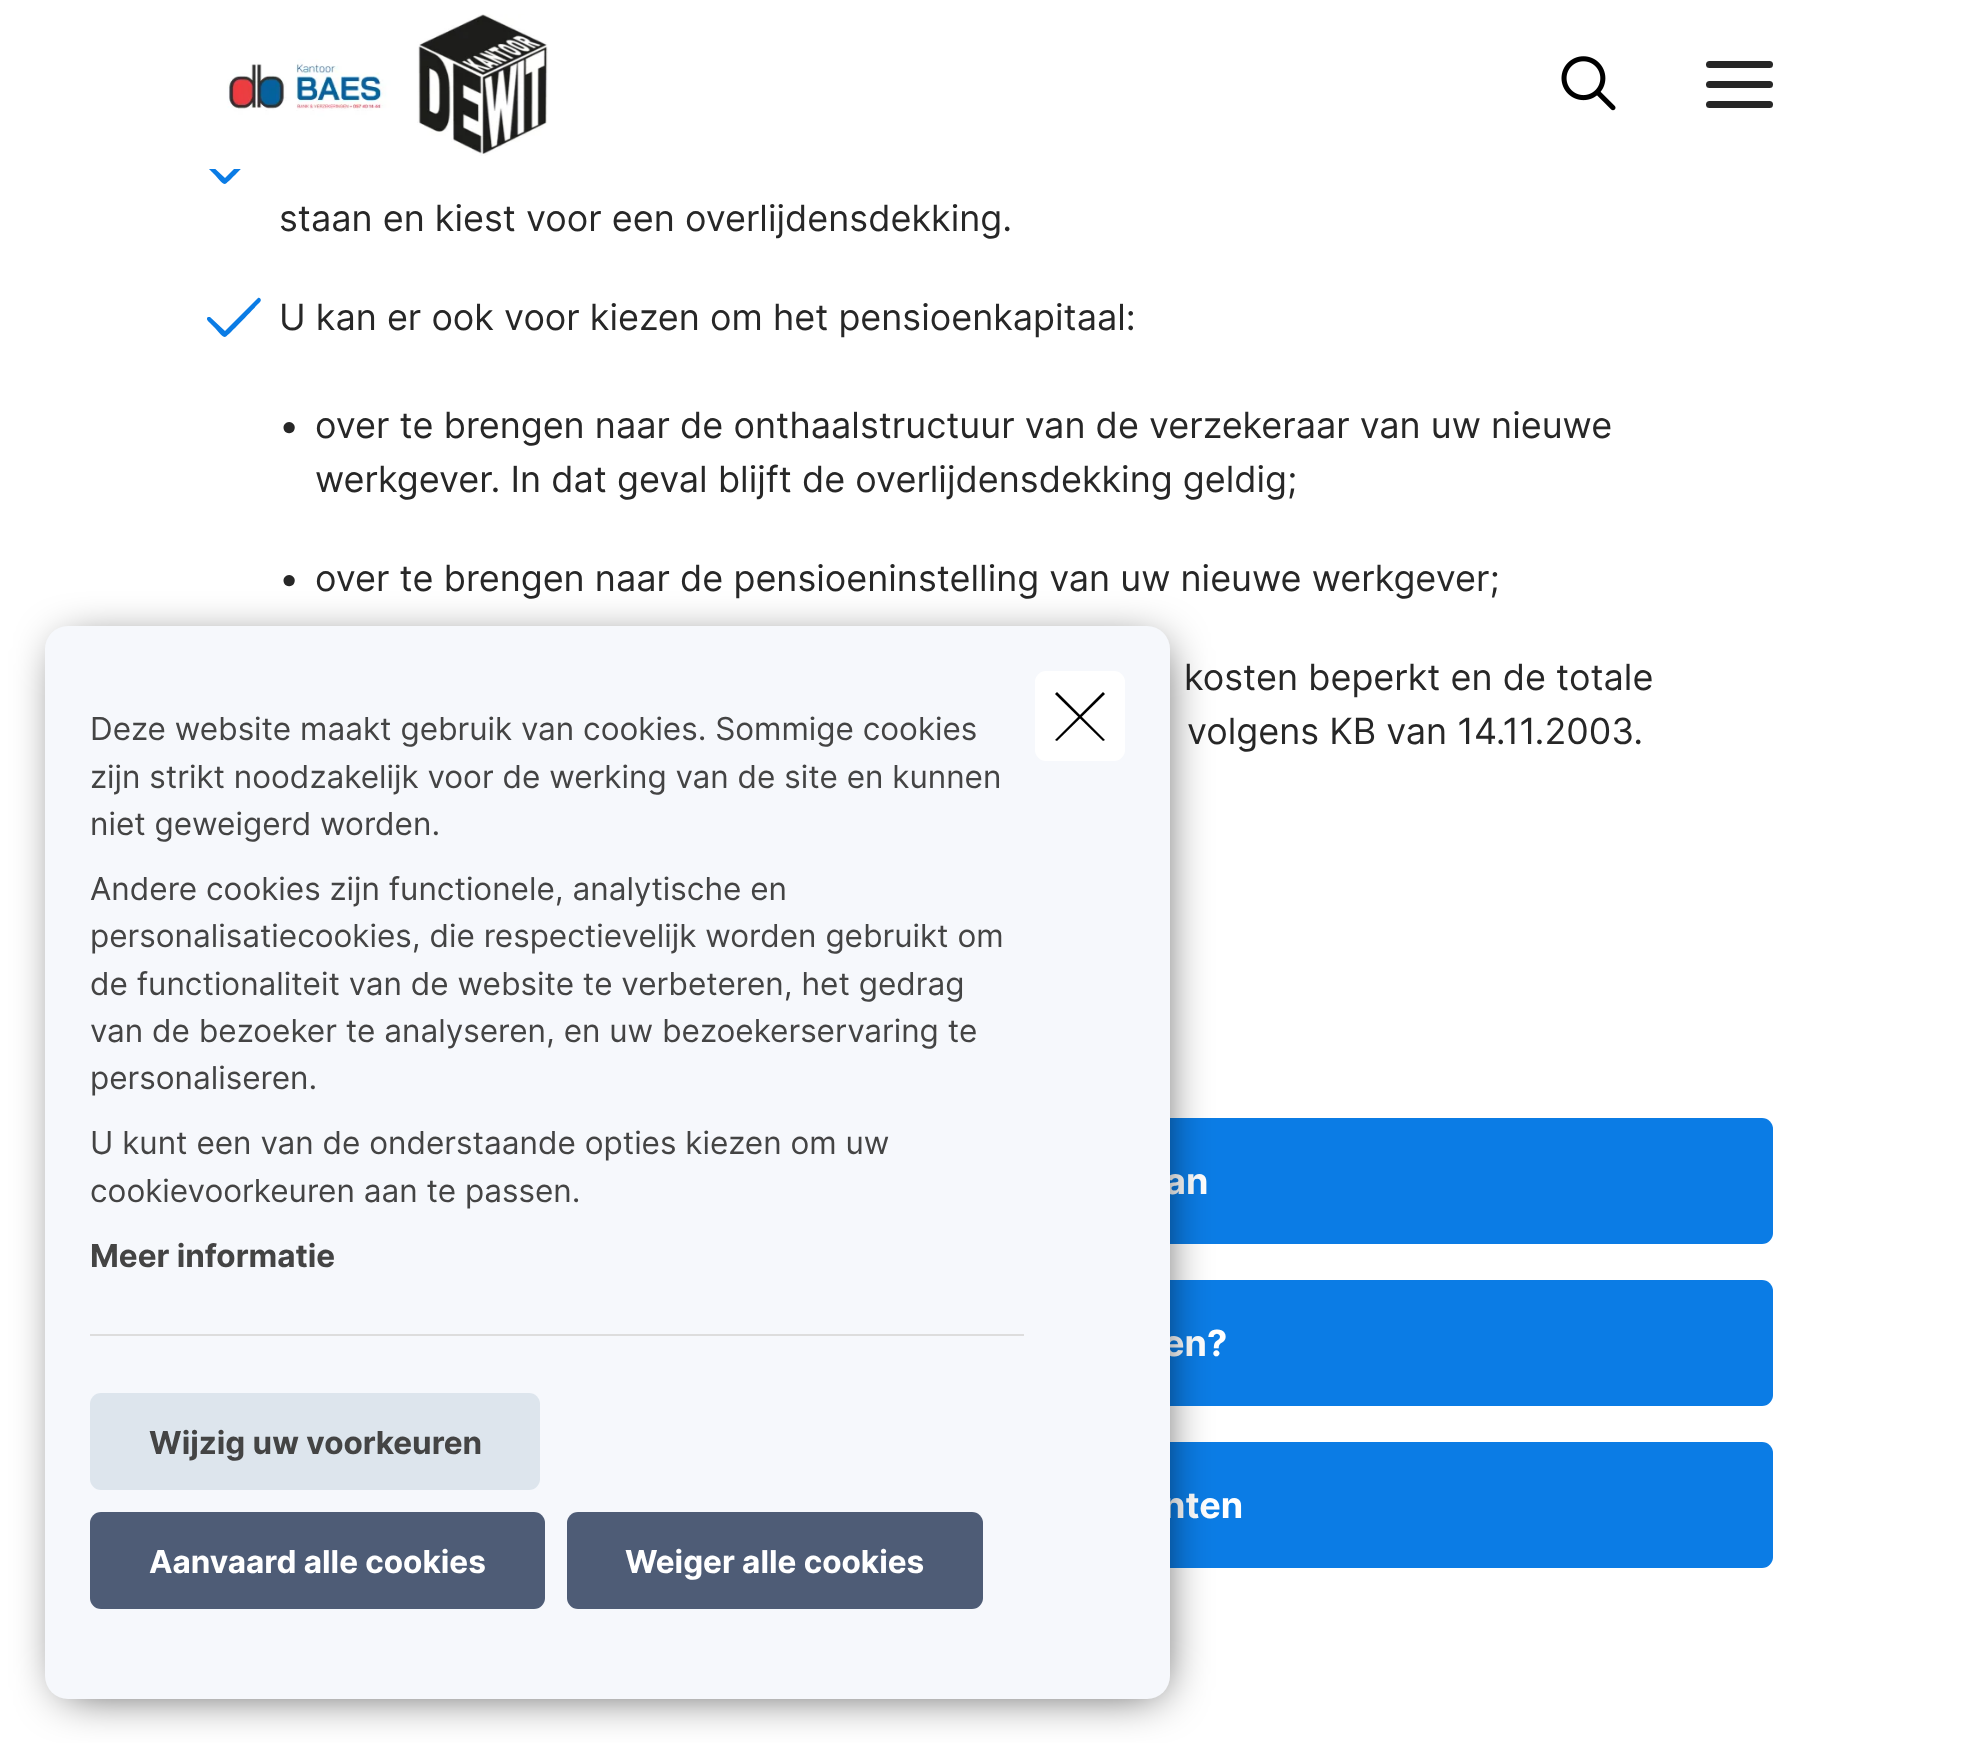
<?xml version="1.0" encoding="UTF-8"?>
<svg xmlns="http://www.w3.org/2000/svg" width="1979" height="1743">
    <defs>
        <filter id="blur1" x="-50%" y="-200%" width="200%" height="500%"><feGaussianBlur stdDeviation="23.5"/></filter>
    </defs>
    <rect width="100%" height="100%" fill="#FFFFFF"/>
    <path d="M 225 184 C 222 184 217 177 215 175 L 210 170 C 209 169 205 166 208 164 H 210 L 225 178 L 258 145 C 260 144 262 147 260 149 C 256 153 227 184 225 184 Z" fill="#0B7CE5"/>
    <rect x="206" y="144" width="55" height="25" fill="#FFFFFF"/>
    <image x="227" y="14" width="321" height="142" href="img_01.png"/>
    <image x="1561" y="56" width="55" height="55" href="img_02.png"/>
    <rect x="1706" y="81" width="67" height="7" rx="3.5" fill="#272727"/>
    <rect x="1706" y="61" width="67" height="7" rx="3.5" fill="#272727"/>
    <rect x="1706" y="101" width="67" height="7" rx="3.5" fill="#272727"/>
    <text x="279" y="231" font-family="Inter" font-size="36" fill="#272727">staan en kiest voor een overlijdensdekking.</text>
    <path d="M 225 337 C 222 337 217 330 215 328 L 210 323 C 209 322 205 319 208 317 H 210 L 225 331 L 258 298 C 260 297 262 300 260 302 C 256 306 227 337 225 337 Z" fill="#0B7CE5"/>
    <text x="279" y="330" font-family="Inter" font-size="36" fill="#272727">U kan er ook voor kiezen om het pensioenkapitaal:</text>
    <text x="279" y="438" font-family="Inter" font-size="36" fill="#272727">•</text>
    <text font-family="Inter" font-size="36" fill="#272727">
        <tspan x="315" y="438">over te brengen naar de onthaalstructuur van de verzekeraar van uw nieuwe</tspan>
        <tspan x="315" y="492">werkgever. In dat geval blijft de overlijdensdekking geldig;</tspan>
    </text>
    <text x="279" y="591" font-family="Inter" font-size="36" fill="#272727">•</text>
    <text x="315" y="591" font-family="Inter" font-size="36" fill="#272727">over te brengen naar de pensioeninstelling van uw nieuwe werkgever;</text>
    <text x="1184" y="690" font-family="Inter" font-size="36" fill="#272727">kosten beperkt en de totale</text>
    <text x="1187" y="744" font-family="Inter" font-size="36" fill="#272727">volgens KB van 14.11.2003.</text>
    <path d="M 74 1675.5 L 61 1688.5 L 47.5 1675.5" fill="none" stroke="#0B7CE5" stroke-width="3.7" stroke-linecap="round" stroke-linejoin="round"/>
    <rect x="207" y="1118" width="1566" height="126" rx="11" fill="#0B7CE5"/>
    <text x="1165" y="1194" font-family="Inter" font-size="36" font-weight="700" fill="#FFFFFF">an</text>
    <rect x="207" y="1280" width="1566" height="126" rx="11" fill="#0B7CE5"/>
    <text x="1163" y="1356" font-family="Inter" font-size="36" font-weight="700" fill="#FFFFFF">en?</text>
    <rect x="207" y="1442" width="1566" height="126" rx="11" fill="#0B7CE5"/>
    <text x="1163" y="1518" font-family="Inter" font-size="36" font-weight="700" fill="#FFFFFF">nten</text>
    <rect x="63" y="646" width="1098" height="1046" rx="9" fill="#000000" fill-opacity="0.75" filter="url(#blur1)"/>
    <rect x="45" y="626" width="1125" height="1073" rx="23" fill="#F6F8FC"/>
    <rect x="90" y="1334" width="934" height="2" fill="#DDDDDD"/>
    <text font-family="Inter" font-size="31.5" fill="#444444">
        <tspan x="90" y="740">Deze website maakt gebruik van cookies. Sommige cookies</tspan>
        <tspan x="90" y="788">zijn strikt noodzakelijk voor de werking van de site en kunnen</tspan>
        <tspan x="90" y="835">niet geweigerd worden.</tspan>
    </text>
    <text font-family="Inter" font-size="31.5" fill="#444444">
        <tspan x="90" y="900">Andere cookies zijn functionele, analytische en</tspan>
        <tspan x="90" y="947">personalisatiecookies, die respectievelijk worden gebruikt om</tspan>
        <tspan x="90" y="995">de functionaliteit van de website te verbeteren, het gedrag</tspan>
        <tspan x="90" y="1042">van de bezoeker te analyseren, en uw bezoekerservaring te</tspan>
        <tspan x="90" y="1089">personaliseren.</tspan>
    </text>
    <text font-family="Inter" font-size="31.5" fill="#444444">
        <tspan x="90" y="1154">U kunt een van de onderstaande opties kiezen om uw</tspan>
        <tspan x="90" y="1202">cookievoorkeuren aan te passen.</tspan>
    </text>
    <text x="90" y="1267" font-family="Inter" font-size="31.5" font-weight="700" fill="#444444">Meer informatie</text>
    <rect x="90" y="1393" width="450" height="97" rx="11" fill="#DDE5ED"/>
    <text x="149" y="1454" font-family="Inter" font-size="31.5" font-weight="700" fill="#444444">Wijzig uw voorkeuren</text>
    <rect x="90" y="1512" width="455" height="97" rx="11" fill="#4E5C76"/>
    <text x="149" y="1573" font-family="Inter" font-size="31.5" font-weight="700" fill="#FFFFFF">Aanvaard alle cookies</text>
    <rect x="567" y="1512" width="416" height="97" rx="11" fill="#4E5C76"/>
    <text x="625" y="1573" font-family="Inter" font-size="31.5" font-weight="700" fill="#FFFFFF">Weiger alle cookies</text>
    <rect x="1035" y="671" width="90" height="90" rx="11" fill="#FFFFFF"/>
    <path d="M 1057 692 L 1105 740 L 1103 741 L 1055 694 Z" fill="#000000"/>
    <path d="M 1055 740 L 1103 692 L 1105 694 L 1057 741 Z" fill="#000000"/>
</svg>
